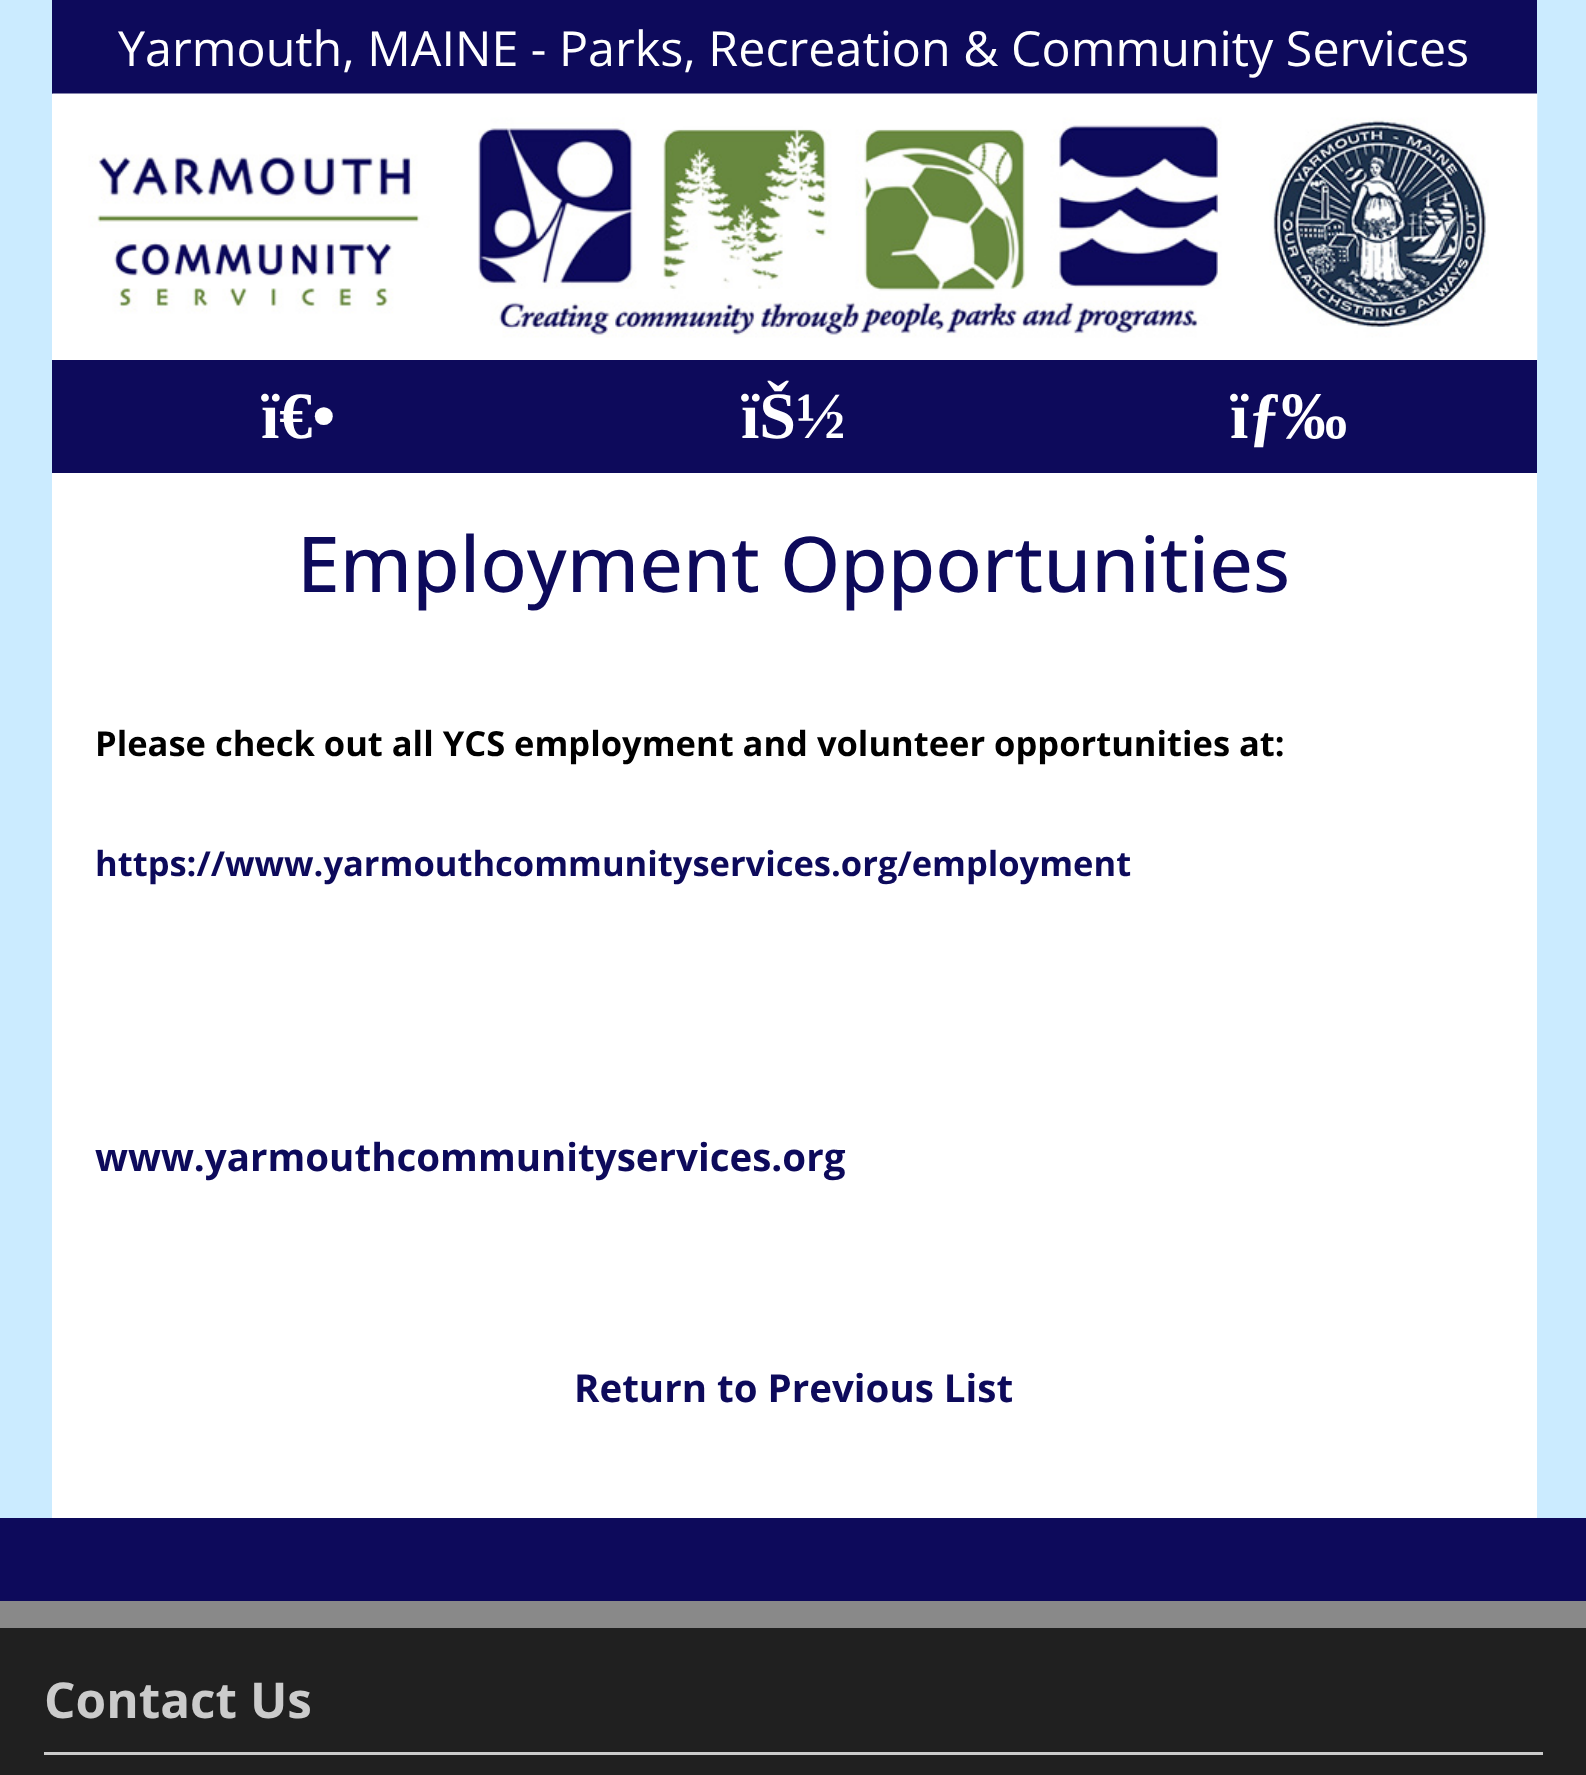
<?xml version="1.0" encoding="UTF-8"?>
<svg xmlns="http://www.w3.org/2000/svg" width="1586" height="1775">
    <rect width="100%" height="100%" fill="#CBEBFF"/>
    <rect x="52" y="94" width="1485" height="1424" fill="#FFFFFF"/>
    <rect x="52" y="0" width="1485" height="94" fill="#0D0A5B"/>
    <text x="118" y="66" font-family="Open Sans" font-size="48.4" fill="#FFFFFF">Yarmouth, MAINE - Parks, Recreation &amp; Community Services</text>
    <image x="52" y="93" width="1486" height="267" href="img_01.png"/>
    <rect x="52" y="360" width="1485" height="113" fill="#0D0A5B"/>
    <text x="261" y="438" font-family="Liberation Serif" font-size="66" font-weight="700" fill="#FFFFFF">ï€•</text>
    <text x="741" y="438" font-family="Liberation Serif" font-size="66" font-weight="700" fill="#FFFFFF">ïŠ½</text>
    <text x="1230" y="438" font-family="Liberation Serif" font-size="66" font-weight="700" fill="#FFFFFF">ïƒ‰</text>
    <text x="297" y="592" font-family="Open Sans" font-size="77" font-weight="500" fill="#0D0A5B">Employment Opportunities</text>
    <text x="95" y="756" font-family="Open Sans" font-size="34.5" font-weight="700" fill="#000000">Please check out all YCS employment and volunteer opportunities at:</text>
    <text x="95" y="876" font-family="Open Sans" font-size="34.5" font-weight="700" fill="#0D0A5B">https://www.yarmouthcommunityservices.org/employment</text>
    <text x="95" y="1171" font-family="Open Sans" font-size="38.5" font-weight="700" fill="#0D0A5B">www.yarmouthcommunityservices.org</text>
    <text x="574" y="1402" font-family="Open Sans" font-size="38.5" font-weight="700" fill="#0D0A5B">Return to Previous List</text>
    <rect x="0" y="1518" width="1586" height="83" fill="#0D0A5B"/>
    <rect x="0" y="1628" width="1586" height="147" fill="#202020"/>
    <rect x="0" y="1601" width="1586" height="27" fill="#898989"/>
    <rect x="44" y="1752" width="1499" height="3" fill="#CBCBCB"/>
    <text x="44" y="1718" font-family="Open Sans" font-size="49.5" font-weight="700" fill="#CBCBCB">Contact Us</text>
</svg>
